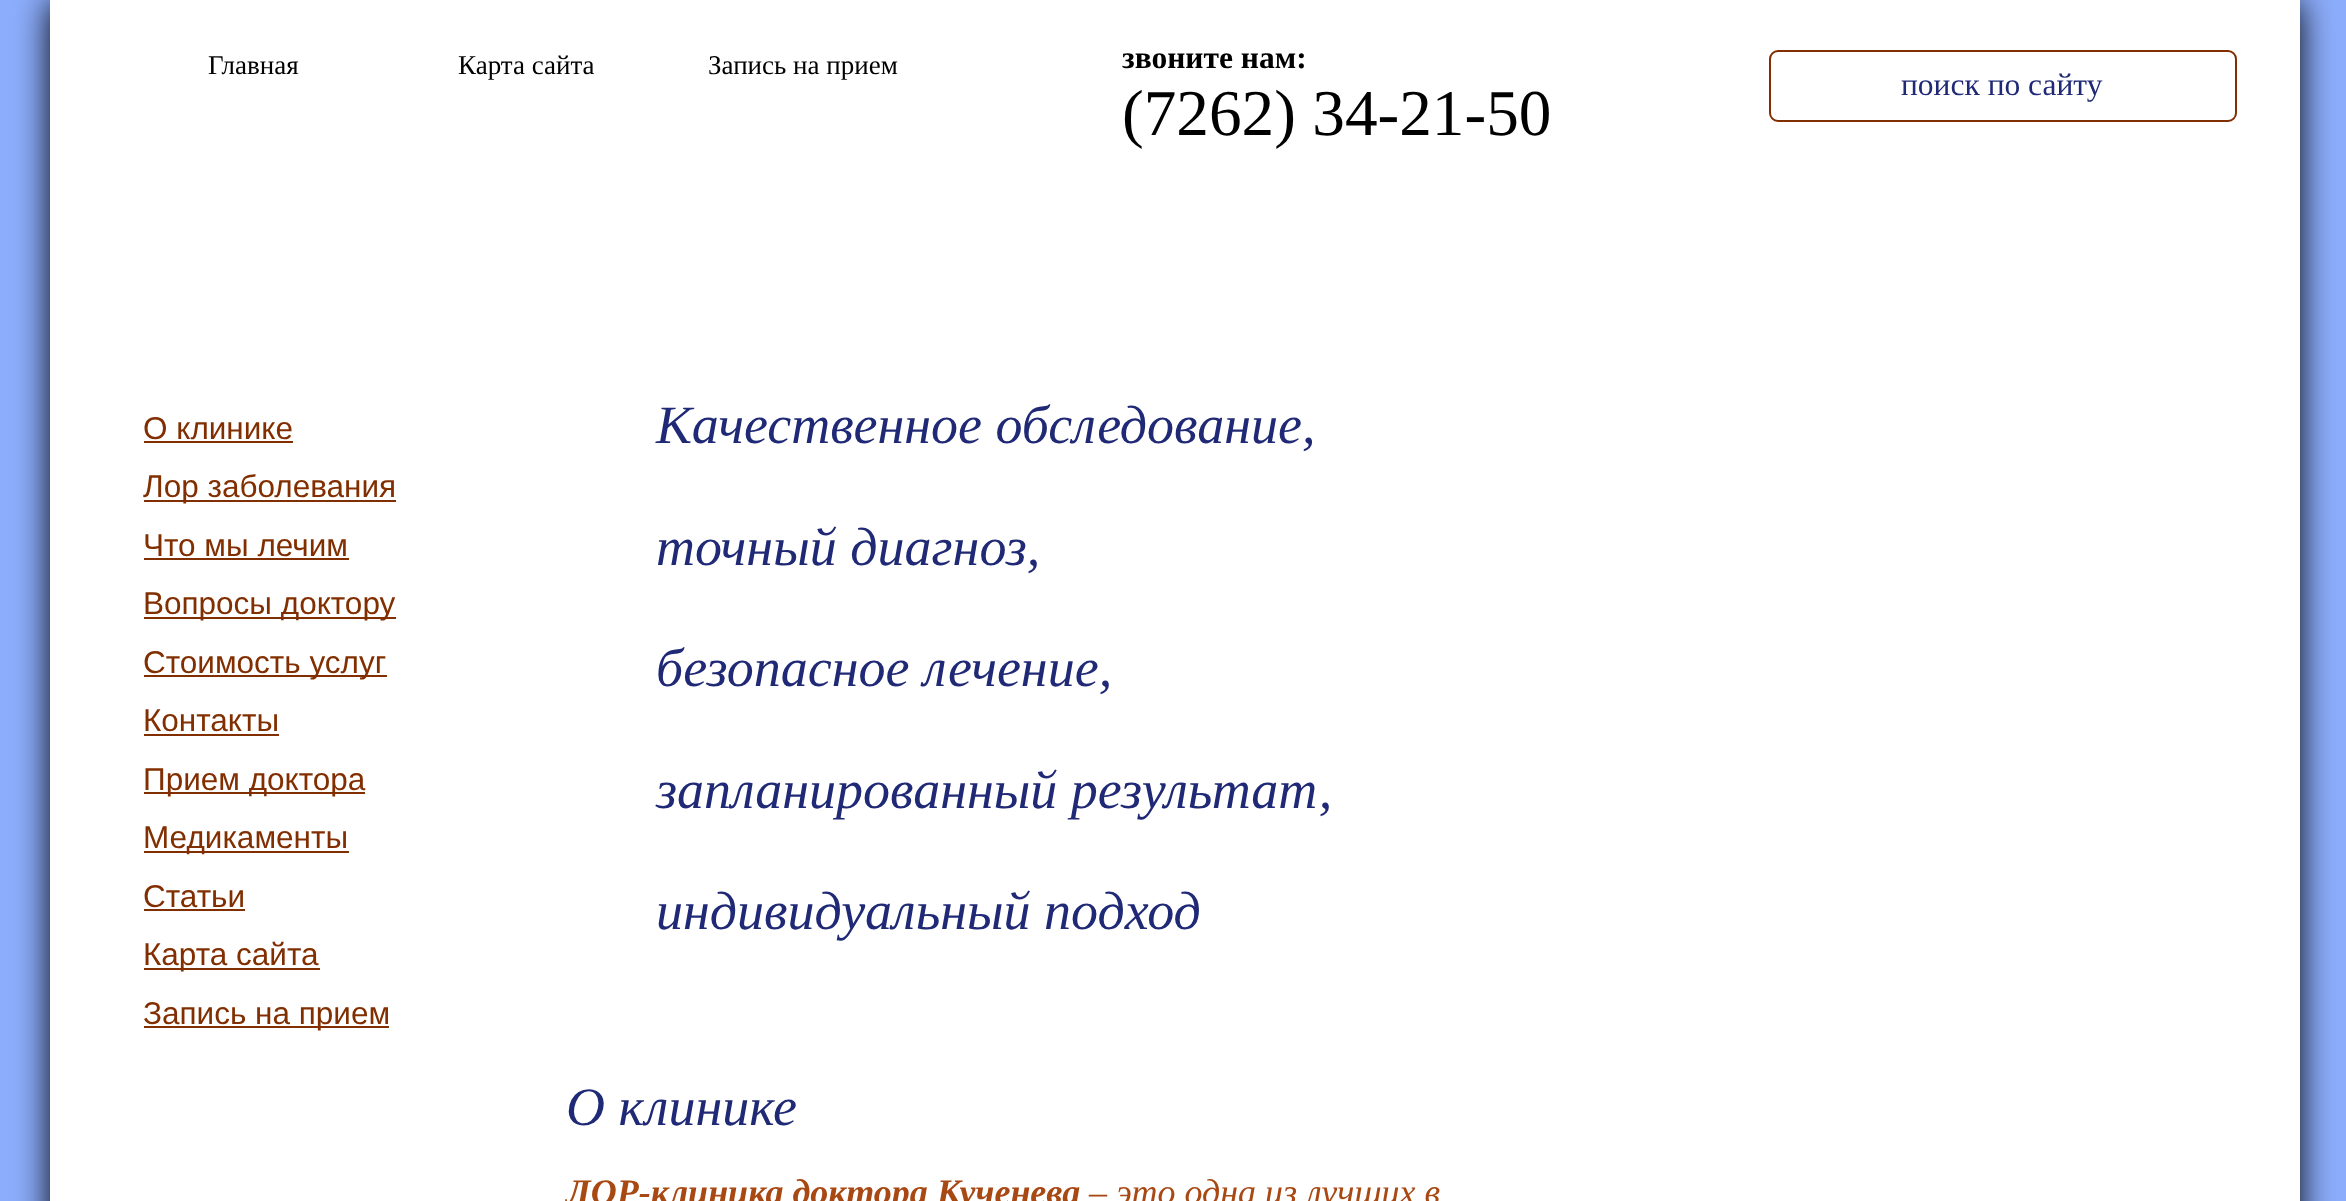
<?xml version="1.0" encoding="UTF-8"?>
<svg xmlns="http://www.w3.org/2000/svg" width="2346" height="1201">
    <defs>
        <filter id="blur1" x="-50%" y="-200%" width="200%" height="500%"><feGaussianBlur stdDeviation="17"/></filter>
    </defs>
    <rect width="100%" height="100%" fill="#8CADFC"/>
    <rect x="50" y="2" width="2250" height="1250" fill="#000000" filter="url(#blur1)"/>
    <rect x="50" y="0" width="2250" height="1201" fill="#FFFFFF"/>
    <text x="208" y="74" font-family="Liberation Serif" font-size="27" fill="#000000">Главная</text>
    <text x="458" y="74" font-family="Liberation Serif" font-size="27" fill="#000000">Карта сайта</text>
    <text x="708" y="74" font-family="Liberation Serif" font-size="27" fill="#000000">Запись на прием</text>
    <text x="1122" y="68" font-family="Liberation Serif" font-size="31.5" font-weight="700" fill="#000000">звоните нам:</text>
    <text x="1122" y="135" font-family="Liberation Serif" font-size="65.25" fill="#000000">(7262) 34-21-50</text>
    <rect x="1770" y="51" width="466" height="70" rx="8" fill="none" stroke="#812E00" stroke-width="2"/>
    <text x="1901" y="95" font-family="Liberation Serif" font-size="31.5" fill="#1F2975">поиск по сайту</text>
    <text x="143" y="439" font-family="Liberation Sans" font-size="31.5" fill="#812E00">О клинике</text>
    <rect x="144" y="441" width="149" height="2" fill="#812E00"/>
    <rect x="144" y="500" width="252" height="2" fill="#812E00"/>
    <text font-family="Liberation Sans" font-size="31.5" fill="#812E00">
        <tspan x="143" y="497">Лор заболевания</tspan>
        <tspan x="143" y="556">Что мы лечим</tspan>
    </text>
    <rect x="144" y="558" width="205" height="2" fill="#812E00"/>
    <rect x="144" y="617" width="252" height="2" fill="#812E00"/>
    <text x="143" y="614" font-family="Liberation Sans" font-size="31.5" fill="#812E00">Вопросы доктору</text>
    <rect x="144" y="675" width="243" height="2" fill="#812E00"/>
    <text font-family="Liberation Sans" font-size="31.5" fill="#812E00">
        <tspan x="143" y="673">Стоимость услуг</tspan>
        <tspan x="143" y="731">Контакты</tspan>
    </text>
    <rect x="144" y="734" width="135" height="2" fill="#812E00"/>
    <rect x="144" y="792" width="221" height="2" fill="#812E00"/>
    <text x="143" y="790" font-family="Liberation Sans" font-size="31.5" fill="#812E00">Прием доктора</text>
    <rect x="144" y="851" width="205" height="2" fill="#812E00"/>
    <text font-family="Liberation Sans" font-size="31.5" fill="#812E00">
        <tspan x="143" y="848">Медикаменты</tspan>
        <tspan x="143" y="907">Статьи</tspan>
    </text>
    <rect x="144" y="909" width="101" height="2" fill="#812E00"/>
    <rect x="144" y="968" width="176" height="2" fill="#812E00"/>
    <text x="143" y="965" font-family="Liberation Sans" font-size="31.5" fill="#812E00">Карта сайта</text>
    <rect x="144" y="1026" width="245" height="2" fill="#812E00"/>
    <text x="143" y="1024" font-family="Liberation Sans" font-size="31.5" fill="#812E00">Запись на прием</text>
    <text x="656" y="443" font-family="Liberation Serif" font-size="54" font-style="italic" fill="#1F2975">Качественное обследование,</text>
    <text x="656" y="565" font-family="Liberation Serif" font-size="54" font-style="italic" fill="#1F2975">точный диагноз,</text>
    <text x="656" y="686" font-family="Liberation Serif" font-size="54" font-style="italic" fill="#1F2975">безопасное лечение,</text>
    <text x="656" y="808" font-family="Liberation Serif" font-size="54" font-style="italic" fill="#1F2975">запланированный результат,</text>
    <text x="656" y="929" font-family="Liberation Serif" font-size="54" font-style="italic" fill="#1F2975">индивидуальный подход</text>
    <text x="566" y="1125" font-family="Liberation Serif" font-size="54" font-style="italic" fill="#1F2975">О клинике</text>
    <text x="566" y="1204" font-family="Liberation Serif" font-size="36" font-weight="700" font-style="italic" fill="#A84813">ЛОР-клиника доктора Кученева</text>
    <text x="1089" y="1204" font-family="Liberation Serif" font-size="36" font-style="italic" fill="#A84813">– это одна из лучших в</text>
</svg>
